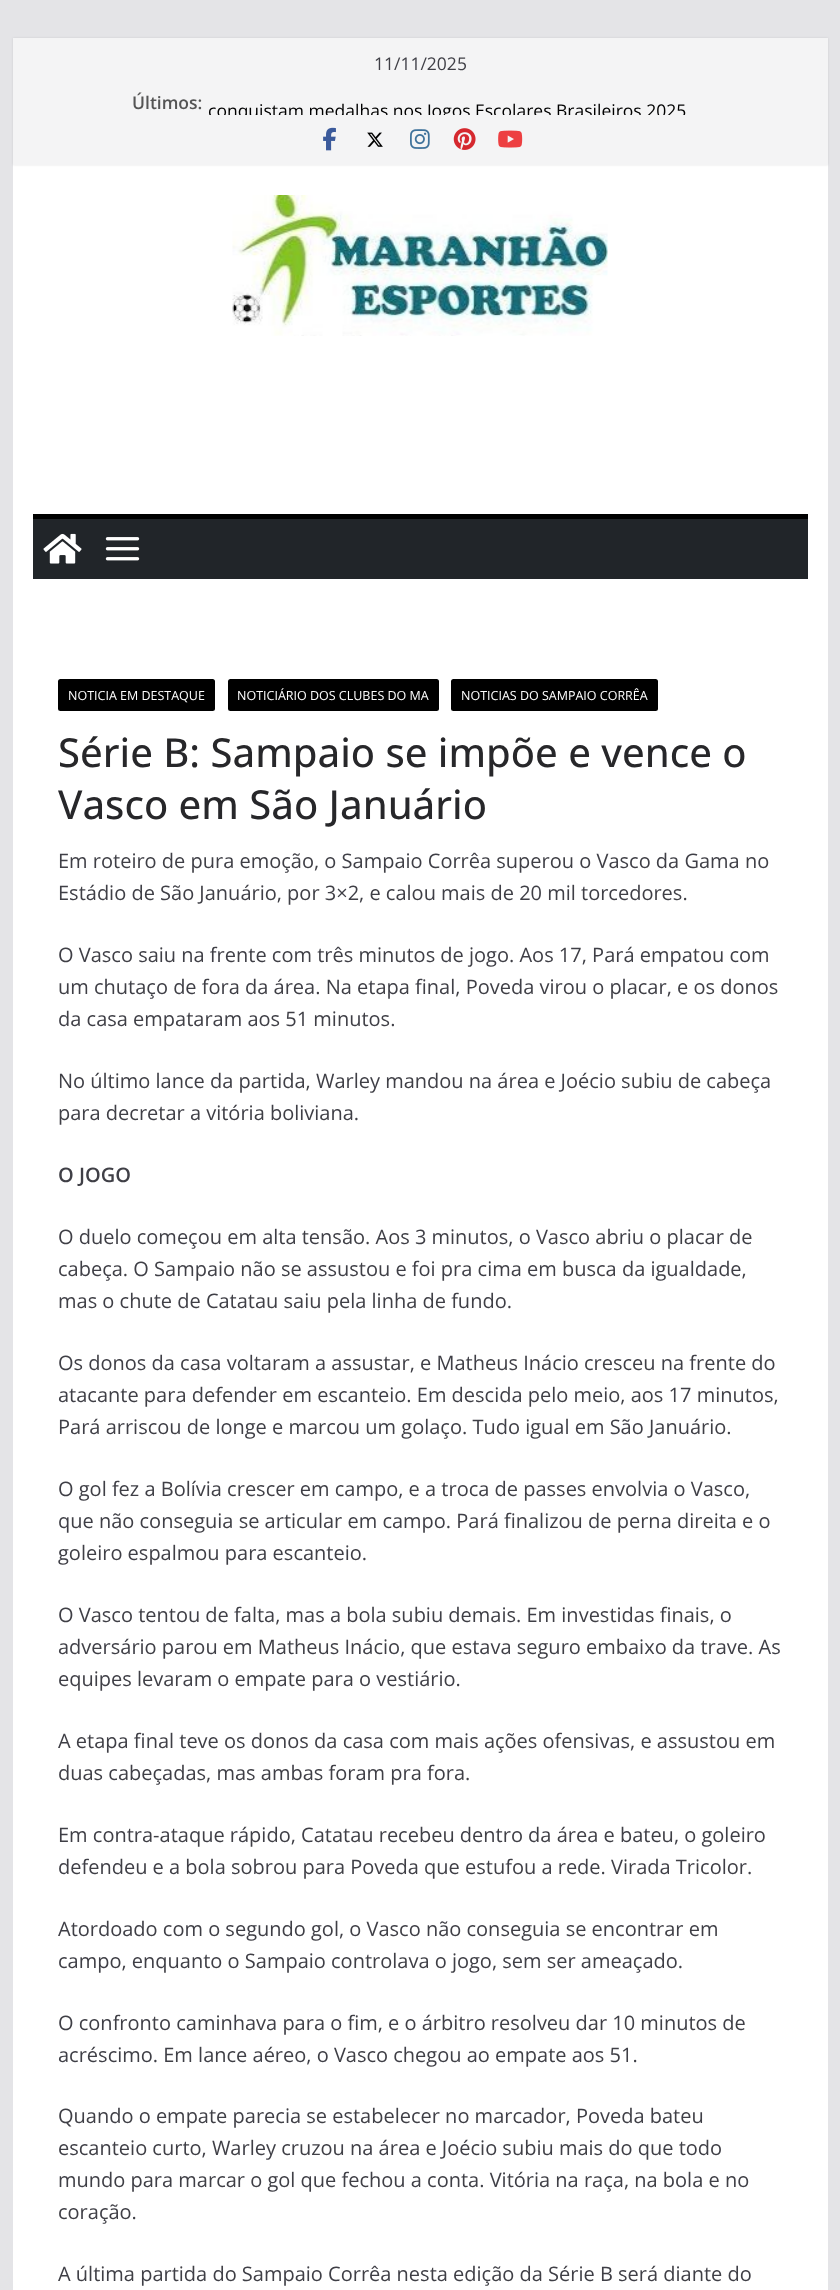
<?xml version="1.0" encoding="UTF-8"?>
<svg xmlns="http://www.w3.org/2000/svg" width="840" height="2290">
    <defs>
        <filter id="blur1" x="-50%" y="-200%" width="200%" height="500%"><feGaussianBlur stdDeviation="1"/></filter>
        <clipPath id="clip1"><rect x="208" y="90" width="500" height="25"/></clipPath>
    </defs>
    <rect width="100%" height="100%" fill="#E4E4E7"/>
    <rect x="13" y="165" width="815" height="2125" fill="#FFFFFF"/>
    <rect x="13" y="38" width="815" height="127" fill="#000000" fill-opacity="0.1" filter="url(#blur1)"/>
    <rect x="13" y="38" width="815" height="127" fill="#F4F4F5"/>
    <text x="374" y="70" font-family="Open Sans" font-size="17.5" fill="#3F3F46">11/11/2025</text>
    <text x="132" y="109" font-family="Open Sans" font-size="17.5" font-weight="600" fill="#555555">Últimos:</text>
    <g clip-path="url(#clip1)">
        <text x="208" y="117" font-family="Open Sans" font-size="17.5" fill="#000000">conquistam medalhas nos Jogos Escolares Brasileiros 2025</text>
    </g>
    <image x="323" y="127" width="13" height="24" href="img_01.png"/>
    <image x="367" y="132" width="16" height="15" href="img_02.png"/>
    <image x="410" y="129" width="20" height="20" href="img_03.png"/>
    <image x="453" y="128" width="23" height="22" href="img_04.png"/>
    <image x="498" y="130" width="25" height="18" href="img_05.png"/>
    <image x="232" y="195" width="376" height="141" href="img_06.png"/>
    <rect x="33" y="519" width="775" height="60" fill="#212529"/>
    <rect x="33" y="514" width="775" height="5" fill="#000000"/>
    <image x="43" y="533" width="39" height="31" href="img_07.png"/>
    <image x="105" y="537" width="35" height="24" href="img_08.png"/>
    <rect x="58" y="679" width="157" height="32" rx="2.5" fill="#000000"/>
    <text x="68" y="700" font-family="Open Sans" font-size="12.5" fill="#FFFFFF">NOTICIA EM DESTAQUE</text>
    <rect x="228" y="679" width="211" height="32" rx="2.5" fill="#000000"/>
    <text x="237" y="700" font-family="Open Sans" font-size="12.5" fill="#FFFFFF">NOTICIÁRIO DOS CLUBES DO MA</text>
    <rect x="451" y="679" width="207" height="32" rx="2.5" fill="#000000"/>
    <text x="461" y="700" font-family="Open Sans" font-size="12.5" fill="#FFFFFF">NOTICIAS DO SAMPAIO CORRÊA</text>
    <text font-family="Open Sans" font-size="40" font-weight="500" fill="#27272A">
        <tspan x="58" y="767">Série B: Sampaio se impõe e vence o</tspan>
        <tspan x="58" y="819">Vasco em São Januário</tspan>
    </text>
    <text font-family="Open Sans" font-size="20" fill="#3F3F46">
        <tspan x="58" y="868">Em roteiro de pura emoção, o Sampaio Corrêa superou o Vasco da Gama no</tspan>
        <tspan x="58" y="900">Estádio de São Januário, por 3×2, e calou mais de 20 mil torcedores.</tspan>
    </text>
    <text font-family="Open Sans" font-size="20" fill="#3F3F46">
        <tspan x="58" y="962">O Vasco saiu na frente com três minutos de jogo. Aos 17, Pará empatou com</tspan>
        <tspan x="58" y="994">um chutaço de fora da área. Na etapa final, Poveda virou o placar, e os donos</tspan>
        <tspan x="58" y="1026">da casa empataram aos 51 minutos.</tspan>
    </text>
    <text font-family="Open Sans" font-size="20" fill="#3F3F46">
        <tspan x="58" y="1088">No último lance da partida, Warley mandou na área e Joécio subiu de cabeça</tspan>
        <tspan x="58" y="1120">para decretar a vitória boliviana.</tspan>
    </text>
    <text x="58" y="1182" font-family="Open Sans" font-size="20" font-weight="600" fill="#3F3F46">O JOGO</text>
    <text font-family="Open Sans" font-size="20" fill="#3F3F46">
        <tspan x="58" y="1244">O duelo começou em alta tensão. Aos 3 minutos, o Vasco abriu o placar de</tspan>
        <tspan x="58" y="1276">cabeça. O Sampaio não se assustou e foi pra cima em busca da igualdade,</tspan>
        <tspan x="58" y="1308">mas o chute de Catatau saiu pela linha de fundo.</tspan>
    </text>
    <text font-family="Open Sans" font-size="20" fill="#3F3F46">
        <tspan x="58" y="1370">Os donos da casa voltaram a assustar, e Matheus Inácio cresceu na frente do</tspan>
        <tspan x="58" y="1402">atacante para defender em escanteio. Em descida pelo meio, aos 17 minutos,</tspan>
        <tspan x="58" y="1434">Pará arriscou de longe e marcou um golaço. Tudo igual em São Januário.</tspan>
    </text>
    <text font-family="Open Sans" font-size="20" fill="#3F3F46">
        <tspan x="58" y="1496">O gol fez a Bolívia crescer em campo, e a troca de passes envolvia o Vasco,</tspan>
        <tspan x="58" y="1528">que não conseguia se articular em campo. Pará finalizou de perna direita e o</tspan>
        <tspan x="58" y="1560">goleiro espalmou para escanteio.</tspan>
    </text>
    <text font-family="Open Sans" font-size="20" fill="#3F3F46">
        <tspan x="58" y="1622">O Vasco tentou de falta, mas a bola subiu demais. Em investidas finais, o</tspan>
        <tspan x="58" y="1654">adversário parou em Matheus Inácio, que estava seguro embaixo da trave. As</tspan>
        <tspan x="58" y="1686">equipes levaram o empate para o vestiário.</tspan>
    </text>
    <text font-family="Open Sans" font-size="20" fill="#3F3F46">
        <tspan x="58" y="1748">A etapa final teve os donos da casa com mais ações ofensivas, e assustou em</tspan>
        <tspan x="58" y="1780">duas cabeçadas, mas ambas foram pra fora.</tspan>
    </text>
    <text font-family="Open Sans" font-size="20" fill="#3F3F46">
        <tspan x="58" y="1842">Em contra-ataque rápido, Catatau recebeu dentro da área e bateu, o goleiro</tspan>
        <tspan x="58" y="1874">defendeu e a bola sobrou para Poveda que estufou a rede. Virada Tricolor.</tspan>
    </text>
    <text font-family="Open Sans" font-size="20" fill="#3F3F46">
        <tspan x="58" y="1936">Atordoado com o segundo gol, o Vasco não conseguia se encontrar em</tspan>
        <tspan x="58" y="1968">campo, enquanto o Sampaio controlava o jogo, sem ser ameaçado.</tspan>
    </text>
    <text font-family="Open Sans" font-size="20" fill="#3F3F46">
        <tspan x="58" y="2030">O confronto caminhava para o fim, e o árbitro resolveu dar 10 minutos de</tspan>
        <tspan x="58" y="2062">acréscimo. Em lance aéreo, o Vasco chegou ao empate aos 51.</tspan>
    </text>
    <text font-family="Open Sans" font-size="20" fill="#3F3F46">
        <tspan x="58" y="2123">Quando o empate parecia se estabelecer no marcador, Poveda bateu</tspan>
        <tspan x="58" y="2155">escanteio curto, Warley cruzou na área e Joécio subiu mais do que todo</tspan>
        <tspan x="58" y="2187">mundo para marcar o gol que fechou a conta. Vitória na raça, na bola e no</tspan>
        <tspan x="58" y="2219">coração.</tspan>
    </text>
    <text x="58" y="2281" font-family="Open Sans" font-size="20" fill="#3F3F46">A última partida do Sampaio Corrêa nesta edição da Série B será diante do</text>
</svg>
